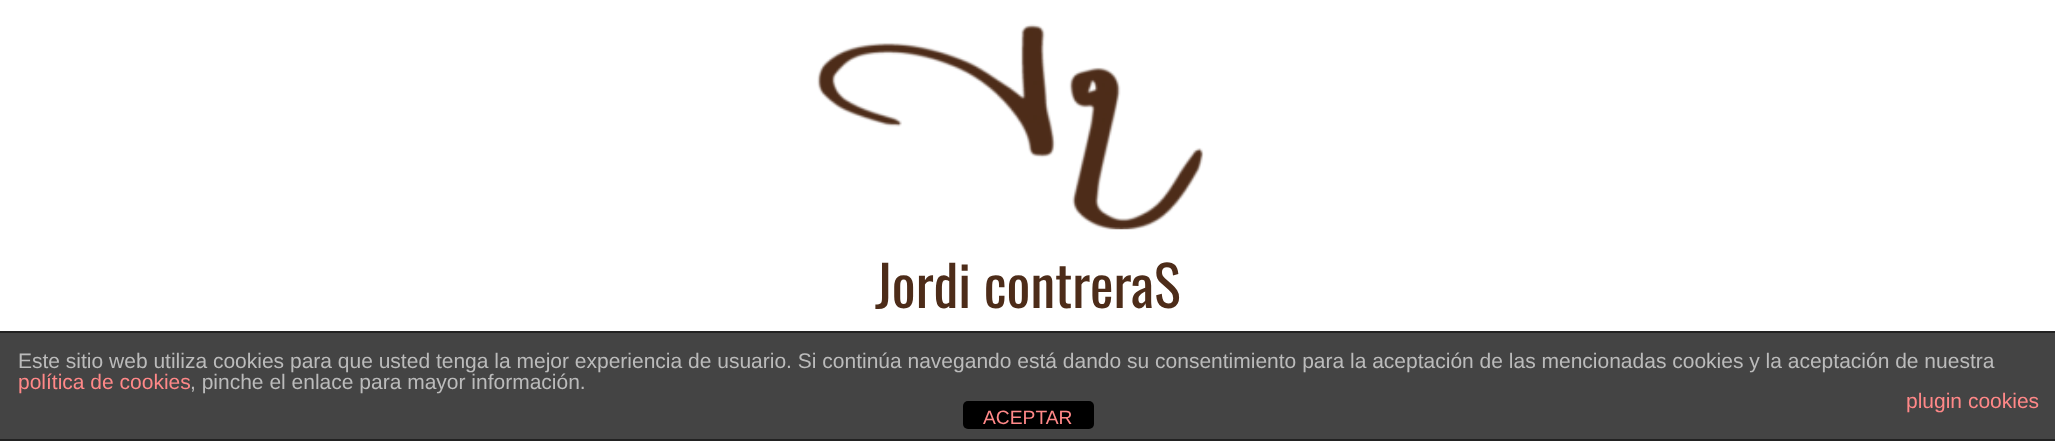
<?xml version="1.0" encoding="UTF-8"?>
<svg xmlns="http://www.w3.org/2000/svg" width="2055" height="441">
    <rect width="100%" height="100%" fill="#FFFFFF"/>
    <image x="817" y="24" width="387" height="206" href="img_01.png"/>
    <text x="875" y="308" font-family="Oswald" font-size="56" fill="#4D2C19">Jordi contreraS</text>
    <rect x="0" y="333" width="2055" height="106" fill="#444444"/>
    <rect x="0" y="331" width="2055" height="2" fill="#222222"/>
    <rect x="0" y="439" width="2055" height="2" fill="#222222"/>
    <text x="18" y="368" font-family="Liberation Sans" font-size="21" fill="#BBBBBB">Este sitio web utiliza cookies para que usted tenga la mejor experiencia de usuario. Si continúa navegando está dando su consentimiento para la aceptación de las mencionadas cookies y la aceptación de nuestra</text>
    <text x="18" y="389" font-family="Liberation Sans" font-size="21" fill="#FF8888">política de cookies</text>
    <text x="190" y="389" font-family="Liberation Sans" font-size="21" fill="#BBBBBB">, pinche el enlace para mayor información.</text>
    <text x="1906" y="408" font-family="Liberation Sans" font-size="21" fill="#FF8888">plugin cookies</text>
    <rect x="963" y="401" width="131" height="28" rx="5" fill="#000000"/>
    <text x="983" y="424" font-family="Liberation Sans" font-size="19.25" fill="#FF8888">ACEPTAR</text>
</svg>
